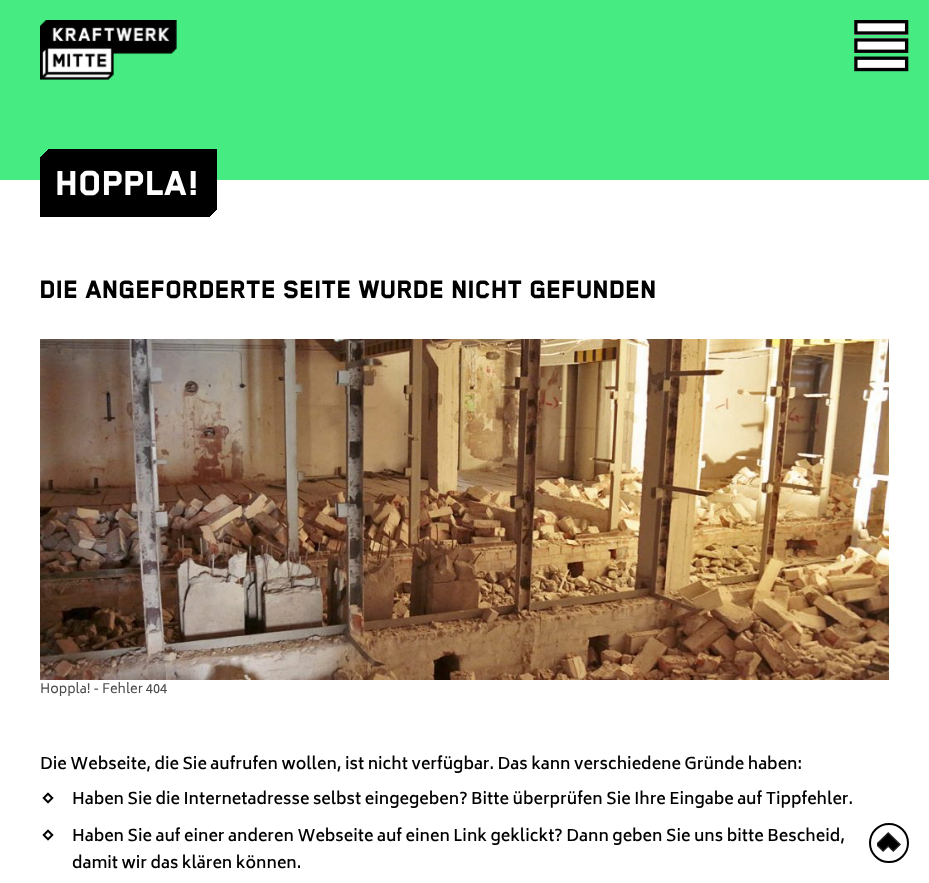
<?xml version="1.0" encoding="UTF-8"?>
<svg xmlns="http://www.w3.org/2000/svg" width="929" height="883">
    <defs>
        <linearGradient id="g1" gradientUnits="userSpaceOnUse" x1="217" y1="217" x2="209" y2="209"><stop offset="0.5" stop-color="#FFFFFF"/><stop offset="0.5" stop-color="#000000"/></linearGradient>
        <linearGradient id="g2" gradientUnits="userSpaceOnUse" x1="40" y1="149" x2="48" y2="157"><stop offset="0.5" stop-color="#46EB82"/><stop offset="0.5" stop-color="#000000"/></linearGradient>
    </defs>
    <rect width="100%" height="100%" fill="#FFFFFF"/>
    <rect x="0" y="0" width="929" height="180" fill="#46EB82"/>
    <image x="40" y="20" width="137" height="60" href="img_01.png"/>
    <image x="854" y="20" width="55" height="52" href="img_02.png"/>
    <rect x="48" y="149" width="169" height="60" fill="#000000"/>
    <rect x="40" y="157" width="169" height="60" fill="#000000"/>
    <rect x="209" y="209" width="8" height="8" fill="url(#g1)"/>
    <rect x="40" y="149" width="8" height="8" fill="url(#g2)"/>
    <text x="56" y="195" font-family="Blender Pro" font-size="40" font-weight="900" letter-spacing="0.25" fill="#FFFFFF">HOPPLA!</text>
    <text x="40" y="298" font-family="Blender Pro" font-size="29" font-weight="900" fill="#000000">DIE ANGEFORDERTE SEITE WURDE NICHT GEFUNDEN</text>
    <image x="40" y="339" width="849" height="341" href="img_03.png"/>
    <text x="40" y="693" font-family="Biryani" font-size="13" fill="#4C4C4C">Hoppla! - Fehler 404</text>
    <text x="40" y="769" font-family="Biryani" font-size="16" font-weight="600" fill="#000000">Die Webseite, die Sie aufrufen wollen, ist nicht verfügbar. Das kann verschiedene Gründe haben:</text>
    <image x="42" y="792" width="12" height="12" href="img_04.png"/>
    <text x="72" y="804" font-family="Biryani" font-size="16" font-weight="600" fill="#000000">Haben Sie die Internetadresse selbst eingegeben? Bitte überprüfen Sie Ihre Eingabe auf Tippfehler.</text>
    <image x="42" y="829" width="12" height="12" href="img_04.png"/>
    <text font-family="Biryani" font-size="16" font-weight="600" fill="#000000">
        <tspan x="72" y="841">Haben Sie auf einer anderen Webseite auf einen Link geklickt? Dann geben Sie uns bitte Bescheid,</tspan>
        <tspan x="72" y="868">damit wir das klären können.</tspan>
    </text>
    <circle cx="889" cy="843" r="19" fill="none" stroke="#000000" stroke-width="2"/>
    <image x="877" y="832" width="24" height="20" href="img_05.png"/>
</svg>
